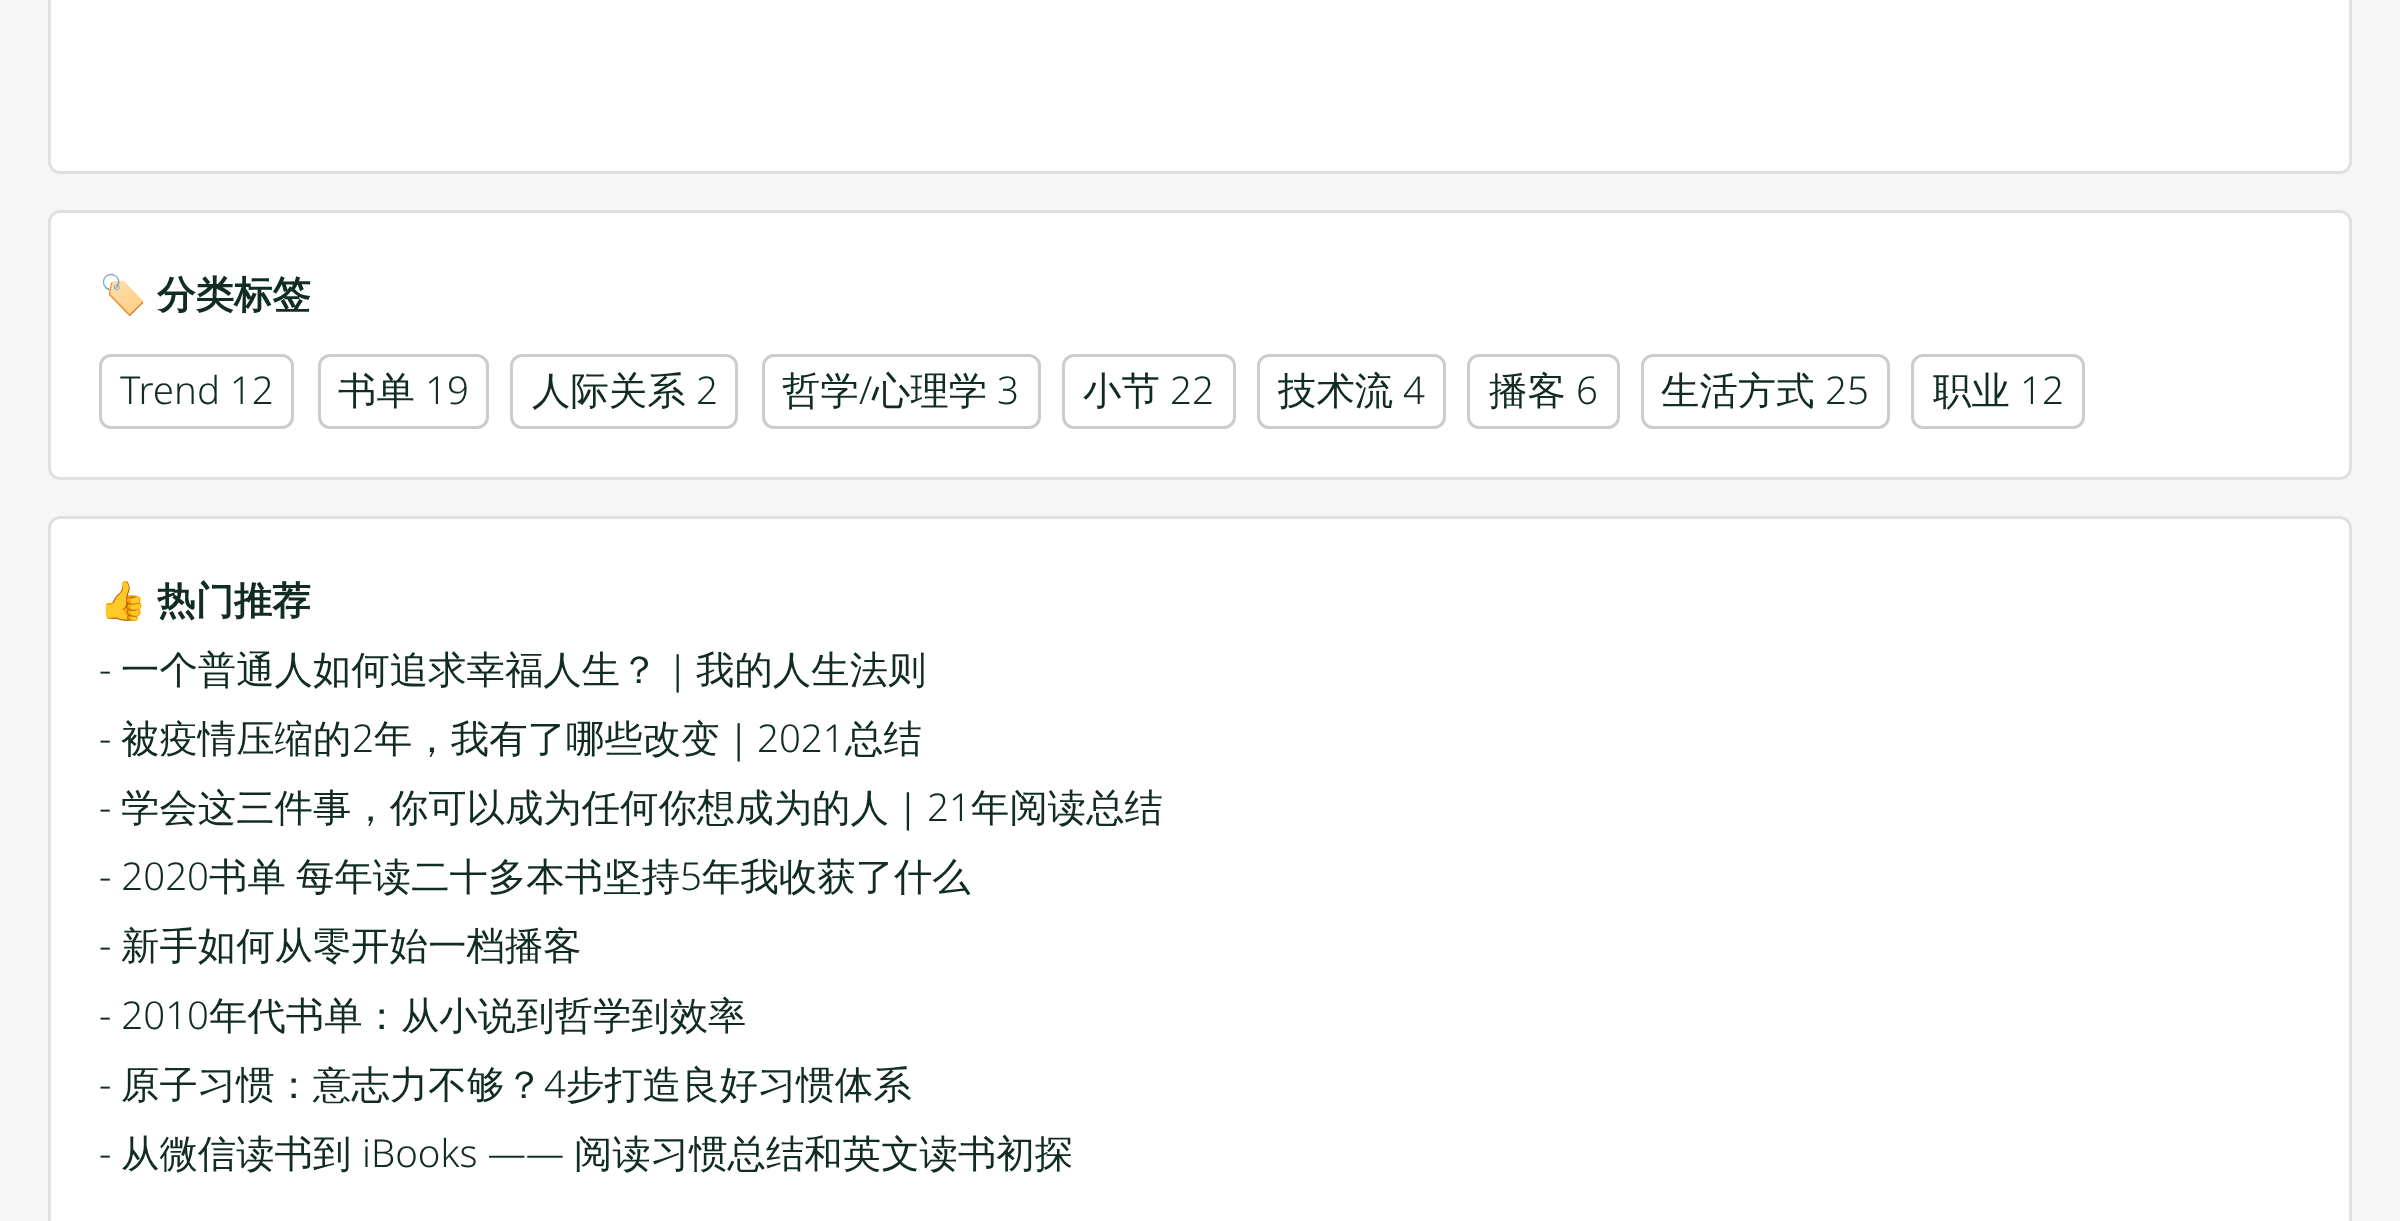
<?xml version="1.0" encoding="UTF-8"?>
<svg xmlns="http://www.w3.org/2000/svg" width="2400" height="1221">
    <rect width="100%" height="100%" fill="#F6F6F7"/>
    <rect x="48" y="-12" width="2304" height="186" rx="12" fill="#FFFFFF"/>
    <rect x="49.5" y="-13.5" width="2301" height="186" rx="10.5" fill="none" stroke="#000000" stroke-opacity="0.12" stroke-width="3"/>
    <rect x="48" y="210" width="2304" height="270" rx="12" fill="#FFFFFF"/>
    <rect x="49.5" y="211.5" width="2301" height="267" rx="10.5" fill="none" stroke="#000000" stroke-opacity="0.12" stroke-width="3"/>
    <text x="99" y="308" font-family="Noto Color Emoji" font-size="38.4" font-weight="700" fill="#112C22">🏷️</text>
    <text x="157" y="308" font-family="WenQuanYi Zen Hei" font-size="38.4" font-weight="700" fill="#112C22">分类标签</text>
    <rect x="100.5" y="355.5" width="192" height="72" rx="10.5" fill="none" stroke="#CCCCCC" stroke-width="3"/>
    <text x="120" y="404" font-family="Noto Sans" font-size="38.4" font-weight="300" fill="#112C22">Trend 12</text>
    <rect x="319.5" y="355.5" width="168" height="72" rx="10.5" fill="none" stroke="#CCCCCC" stroke-width="3"/>
    <text x="338" y="404" font-family="WenQuanYi Zen Hei" font-size="38.4" font-weight="500" fill="#112C22">书单</text>
    <text x="425" y="404" font-family="Noto Sans" font-size="38.4" font-weight="300" fill="#112C22">19</text>
    <rect x="511.5" y="355.5" width="225" height="72" rx="10.5" fill="none" stroke="#CCCCCC" stroke-width="3"/>
    <text x="532" y="404" font-family="WenQuanYi Zen Hei" font-size="38.4" font-weight="500" fill="#112C22">人际关系</text>
    <text x="696" y="404" font-family="Noto Sans" font-size="38.4" font-weight="300" fill="#112C22">2</text>
    <rect x="763.5" y="355.5" width="276" height="72" rx="10.5" fill="none" stroke="#CCCCCC" stroke-width="3"/>
    <text x="782" y="404" font-family="WenQuanYi Zen Hei" font-size="38.4" font-weight="500" fill="#112C22">哲学</text>
    <text x="859" y="404" font-family="Noto Sans" font-size="38.4" font-weight="300" fill="#112C22">/</text>
    <text x="872" y="404" font-family="WenQuanYi Zen Hei" font-size="38.4" font-weight="500" fill="#112C22">心理学</text>
    <text x="997" y="404" font-family="Noto Sans" font-size="38.4" font-weight="300" fill="#112C22">3</text>
    <rect x="1063.5" y="355.5" width="171" height="72" rx="10.5" fill="none" stroke="#CCCCCC" stroke-width="3"/>
    <text x="1083" y="404" font-family="WenQuanYi Zen Hei" font-size="38.4" font-weight="500" fill="#112C22">小节</text>
    <text x="1170" y="404" font-family="Noto Sans" font-size="38.4" font-weight="300" fill="#112C22">22</text>
    <rect x="1258.5" y="355.5" width="186" height="72" rx="10.5" fill="none" stroke="#CCCCCC" stroke-width="3"/>
    <text x="1278" y="404" font-family="WenQuanYi Zen Hei" font-size="38.4" font-weight="500" fill="#112C22">技术流</text>
    <text x="1403" y="404" font-family="Noto Sans" font-size="38.4" font-weight="300" fill="#112C22">4</text>
    <rect x="1468.5" y="355.5" width="150" height="72" rx="10.5" fill="none" stroke="#CCCCCC" stroke-width="3"/>
    <text x="1489" y="404" font-family="WenQuanYi Zen Hei" font-size="38.4" font-weight="500" fill="#112C22">播客</text>
    <text x="1576" y="404" font-family="Noto Sans" font-size="38.4" font-weight="300" fill="#112C22">6</text>
    <rect x="1642.5" y="355.5" width="246" height="72" rx="10.5" fill="none" stroke="#CCCCCC" stroke-width="3"/>
    <text x="1661" y="404" font-family="WenQuanYi Zen Hei" font-size="38.4" font-weight="500" fill="#112C22">生活方式</text>
    <text x="1825" y="404" font-family="Noto Sans" font-size="38.4" font-weight="300" fill="#112C22">25</text>
    <rect x="1912.5" y="355.5" width="171" height="72" rx="10.5" fill="none" stroke="#CCCCCC" stroke-width="3"/>
    <text x="1933" y="404" font-family="WenQuanYi Zen Hei" font-size="38.4" font-weight="500" fill="#112C22">职业</text>
    <text x="2020" y="404" font-family="Noto Sans" font-size="38.4" font-weight="300" fill="#112C22">12</text>
    <rect x="48" y="516" width="2304" height="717" rx="12" fill="#FFFFFF"/>
    <rect x="49.5" y="517.5" width="2301" height="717" rx="10.5" fill="none" stroke="#000000" stroke-opacity="0.12" stroke-width="3"/>
    <text x="99" y="614" font-family="Noto Color Emoji" font-size="38.4" font-weight="700" fill="#112C22">👍</text>
    <text x="157" y="614" font-family="WenQuanYi Zen Hei" font-size="38.4" font-weight="700" fill="#112C22">热门推荐</text>
    <text x="99" y="683" font-family="Noto Sans" font-size="38.4" font-weight="300" fill="#112C22">-</text>
    <text x="121" y="683" font-family="WenQuanYi Zen Hei" font-size="38.4" font-weight="500" fill="#112C22">一个普通人如何追求幸福人生？｜我的人生法则</text>
    <text x="99" y="752" font-family="Noto Sans" font-size="38.4" font-weight="300" fill="#112C22">-</text>
    <text x="121" y="752" font-family="WenQuanYi Zen Hei" font-size="38.4" font-weight="500" fill="#112C22">被疫情压缩的</text>
    <text x="352" y="752" font-family="Noto Sans" font-size="38.4" font-weight="300" fill="#112C22">2</text>
    <text x="374" y="752" font-family="WenQuanYi Zen Hei" font-size="38.4" font-weight="500" fill="#112C22">年，我有了哪些改变｜</text>
    <text x="757" y="752" font-family="Noto Sans" font-size="38.4" font-weight="300" fill="#112C22">2021</text>
    <text x="845" y="752" font-family="WenQuanYi Zen Hei" font-size="38.4" font-weight="500" fill="#112C22">总结</text>
    <text x="99" y="821" font-family="Noto Sans" font-size="38.4" font-weight="300" fill="#112C22">-</text>
    <text x="121" y="821" font-family="WenQuanYi Zen Hei" font-size="38.4" font-weight="500" fill="#112C22">学会这三件事，你可以成为任何你想成为的人｜</text>
    <text x="927" y="821" font-family="Noto Sans" font-size="38.4" font-weight="300" fill="#112C22">21</text>
    <text x="971" y="821" font-family="WenQuanYi Zen Hei" font-size="38.4" font-weight="500" fill="#112C22">年阅读总结</text>
    <text x="99" y="890" font-family="Noto Sans" font-size="38.4" font-weight="300" fill="#112C22">- 2020</text>
    <text x="209" y="890" font-family="WenQuanYi Zen Hei" font-size="38.4" font-weight="500" fill="#112C22">书单</text>
    <text x="296" y="890" font-family="WenQuanYi Zen Hei" font-size="38.4" font-weight="500" fill="#112C22">每年读二十多本书坚持</text>
    <text x="680" y="890" font-family="Noto Sans" font-size="38.4" font-weight="300" fill="#112C22">5</text>
    <text x="702" y="890" font-family="WenQuanYi Zen Hei" font-size="38.4" font-weight="500" fill="#112C22">年我收获了什么</text>
    <text x="99" y="959" font-family="Noto Sans" font-size="38.4" font-weight="300" fill="#112C22">-</text>
    <text x="121" y="959" font-family="WenQuanYi Zen Hei" font-size="38.4" font-weight="500" fill="#112C22">新手如何从零开始一档播客</text>
    <text x="99" y="1029" font-family="Noto Sans" font-size="38.4" font-weight="300" fill="#112C22">- 2010</text>
    <text x="209" y="1029" font-family="WenQuanYi Zen Hei" font-size="38.4" font-weight="500" fill="#112C22">年代书单：从小说到哲学到效率</text>
    <text x="99" y="1098" font-family="Noto Sans" font-size="38.4" font-weight="300" fill="#112C22">-</text>
    <text x="121" y="1098" font-family="WenQuanYi Zen Hei" font-size="38.4" font-weight="500" fill="#112C22">原子习惯：意志力不够？</text>
    <text x="544" y="1098" font-family="Noto Sans" font-size="38.4" font-weight="300" fill="#112C22">4</text>
    <text x="566" y="1098" font-family="WenQuanYi Zen Hei" font-size="38.4" font-weight="500" fill="#112C22">步打造良好习惯体系</text>
    <text x="99" y="1167" font-family="Noto Sans" font-size="38.4" font-weight="300" fill="#112C22">-</text>
    <text x="121" y="1167" font-family="WenQuanYi Zen Hei" font-size="38.4" font-weight="500" fill="#112C22">从微信读书到</text>
    <text x="362" y="1167" font-family="Noto Sans" font-size="38.4" font-weight="300" fill="#112C22">iBooks ——</text>
    <text x="574" y="1167" font-family="WenQuanYi Zen Hei" font-size="38.4" font-weight="500" fill="#112C22">阅读习惯总结和英文读书初探</text>
</svg>
